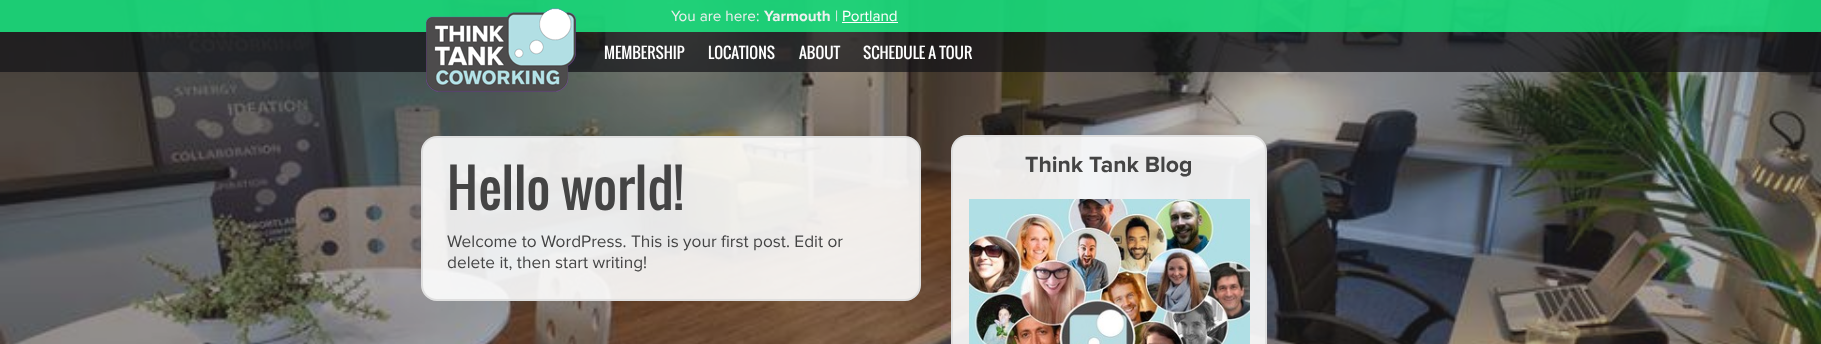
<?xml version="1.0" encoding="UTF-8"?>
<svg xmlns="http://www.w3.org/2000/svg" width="1821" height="344">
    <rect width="100%" height="100%" fill="#333333"/>
    <image x="0" y="0" width="1821" height="344" href="img_01.png"/>
    <rect x="0" y="0" width="1821" height="72" fill="#131217" fill-opacity="0.7"/>
    <rect x="0" y="0" width="1821" height="32" fill="#1CF88A" fill-opacity="0.8"/>
    <image x="426" y="8" width="150" height="84" href="img_02.png"/>
    <text x="671" y="21" font-family="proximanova" font-size="15.25" fill="#EFEFEF">You are here:</text>
    <text x="764" y="21" font-family="proximanova" font-size="15.25" font-weight="700" fill="#EFEFEF">Yarmouth</text>
    <text x="835" y="21" font-family="proximanova" font-size="15.25" fill="#EFEFEF">|</text>
    <text x="842" y="21" font-family="proximanova" font-size="15.25" fill="#FFFFFF">Portland</text>
    <rect x="842" y="22" width="56" height="1" fill="#FFFFFF"/>
    <text x="604" y="59" font-family="Oswald" font-size="15.25" fill="#FFFFFF">MEMBERSHIP</text>
    <text x="708" y="59" font-family="Oswald" font-size="15.25" fill="#FFFFFF">LOCATIONS</text>
    <text x="799" y="59" font-family="Oswald" font-size="15.25" fill="#FFFFFF">ABOUT</text>
    <text x="863" y="59" font-family="Oswald" font-size="15.25" fill="#FFFFFF">SCHEDULE A TOUR</text>
    <rect x="422" y="137" width="498" height="163" rx="15" fill="#FFFFFF" fill-opacity="0.9" stroke="#DFDFDF" stroke-width="2"/>
    <text x="447" y="210" font-family="Oswald" font-size="52" fill="#444444">Hello world!</text>
    <text font-family="proximanova" font-size="17.25" fill="#444444">
        <tspan x="447" y="247">Welcome to WordPress. This is your first post. Edit or</tspan>
        <tspan x="447" y="268">delete it, then start writing!</tspan>
    </text>
    <rect x="952" y="136" width="314" height="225" rx="15" fill="#FFFFFF" fill-opacity="0.9" stroke="#DFDFDF" stroke-width="2"/>
    <text x="1025" y="172" font-family="proximanova" font-size="23" font-weight="700" fill="#444444">Think Tank Blog</text>
    <image x="969" y="199" width="281" height="145" href="img_03.png"/>
</svg>
